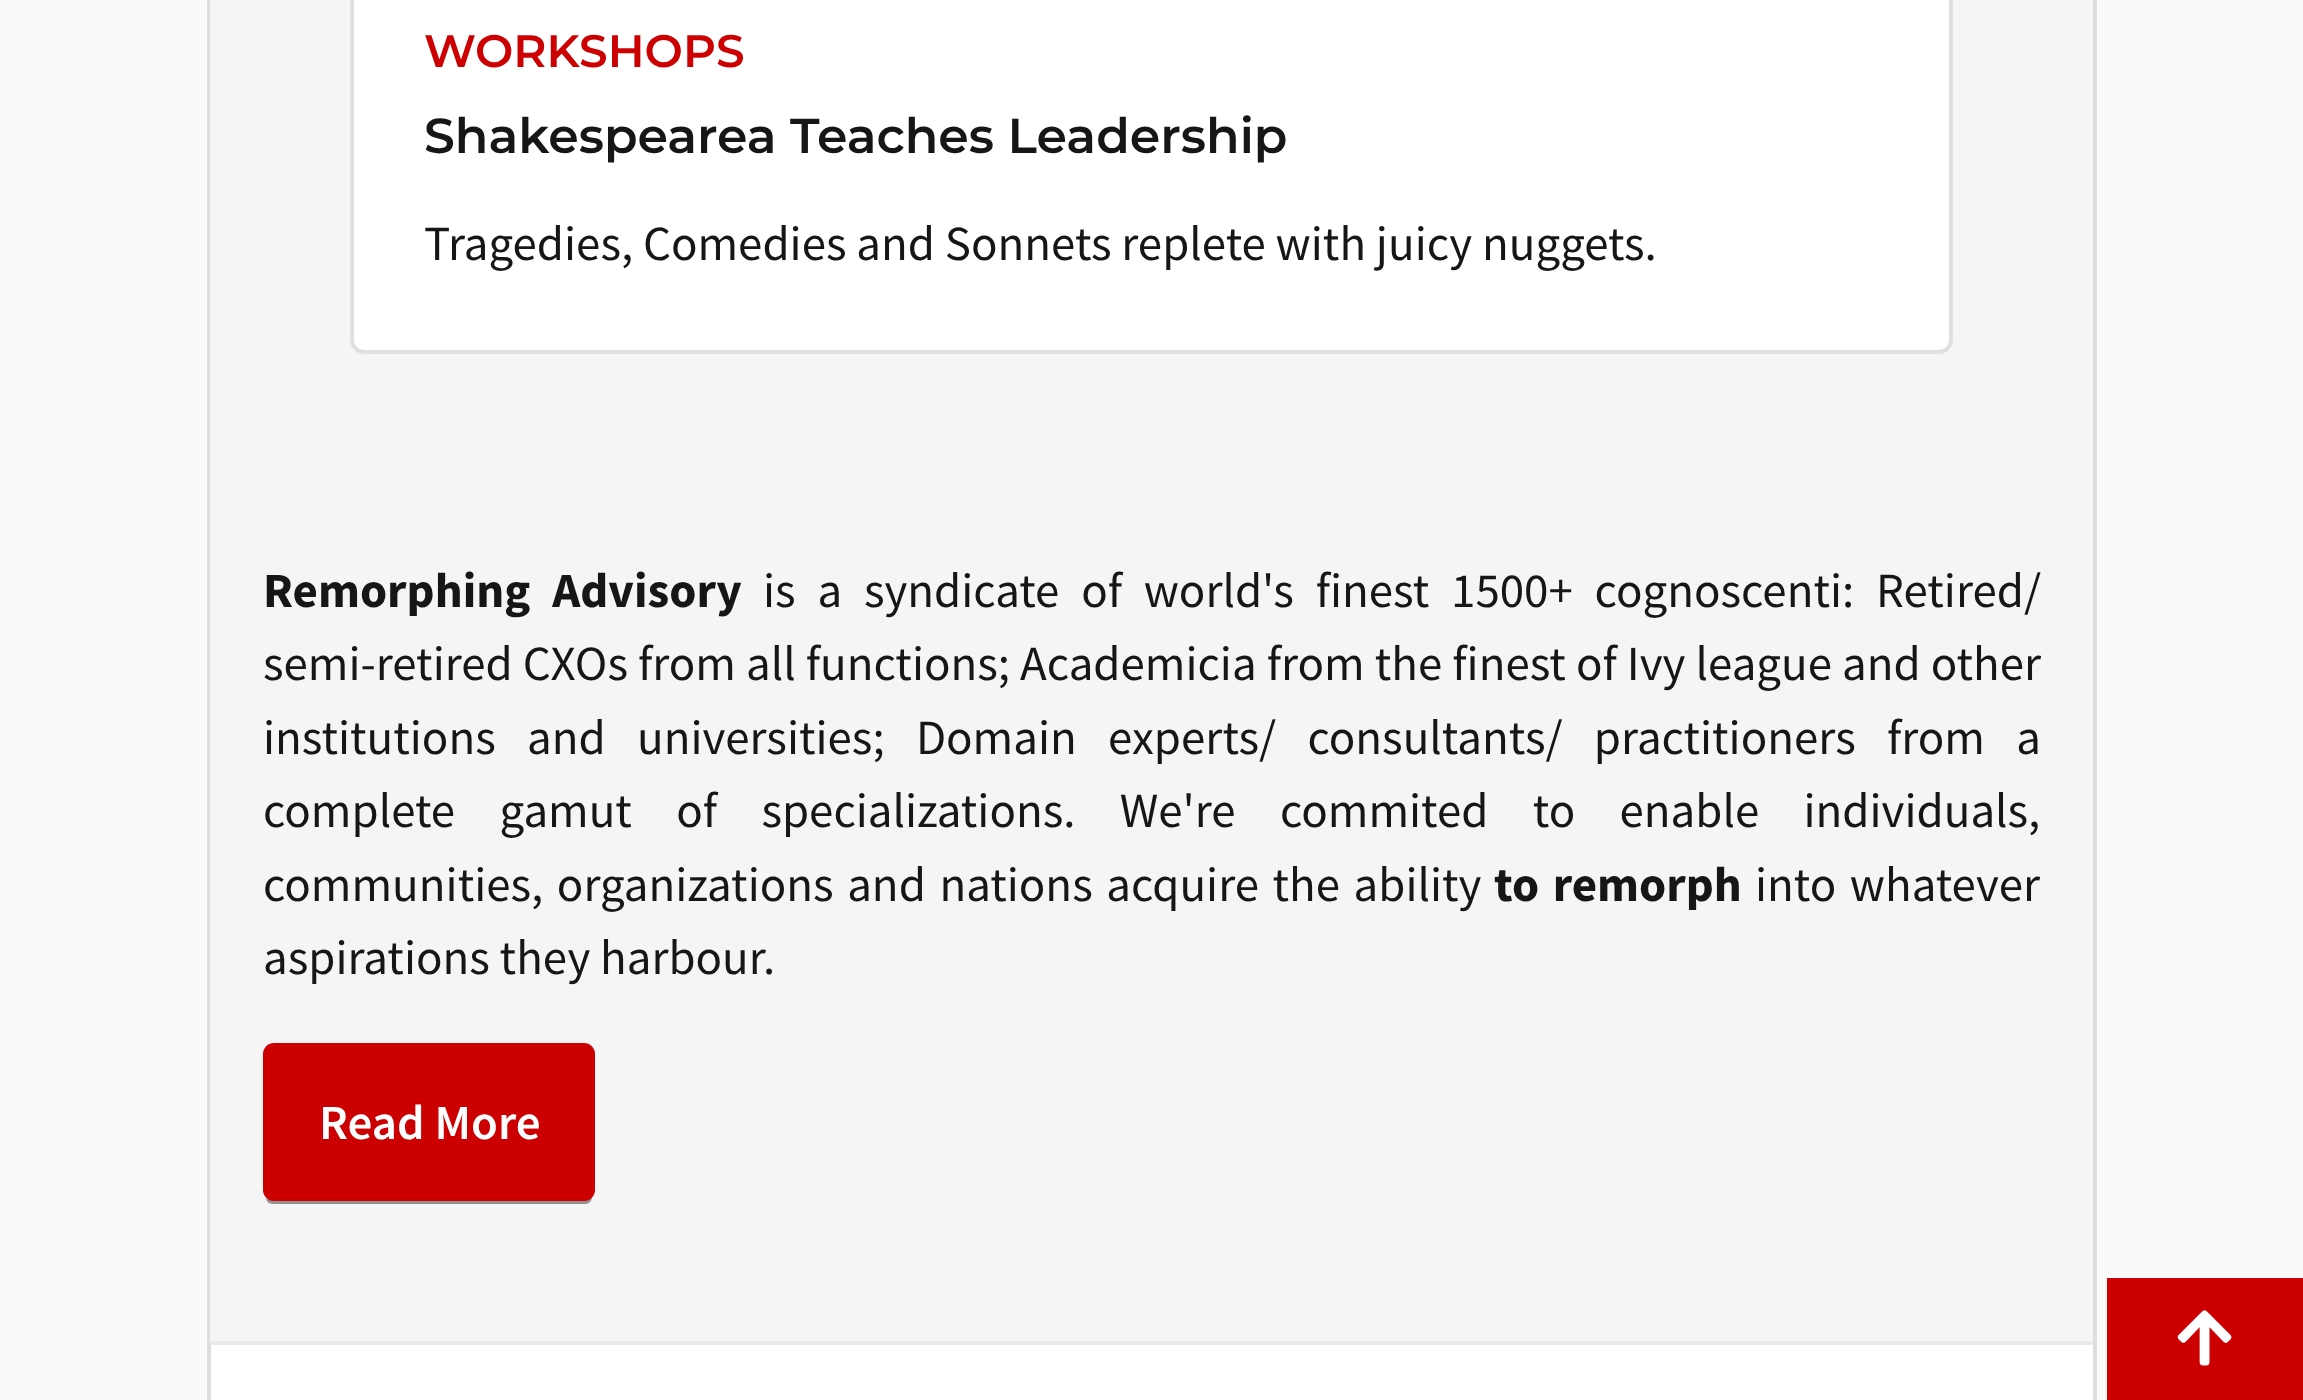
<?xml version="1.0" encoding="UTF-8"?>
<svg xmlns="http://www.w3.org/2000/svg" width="2303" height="1400">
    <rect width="100%" height="100%" fill="#FAFAFA"/>
    <rect x="211" y="1345" width="1882" height="55" fill="#FFFFFF"/>
    <rect x="209" y="-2" width="1886" height="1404" fill="none" stroke="#DDDDDD" stroke-width="4"/>
    <rect x="210" y="0" width="1883" height="1341" fill="#F5F5F5"/>
    <rect x="210" y="1341" width="1883" height="4" fill="#E9E9E9"/>
    <rect x="350" y="-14" width="1603" height="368" rx="14" fill="#FFFFFF"/>
    <rect x="352" y="-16" width="1599" height="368" rx="12" fill="none" stroke="#000000" stroke-opacity="0.12" stroke-width="4"/>
    <text x="424" y="67" font-family="Montserrat" font-size="45.5" font-weight="600" fill="#CC0000">WORKSHOPS</text>
    <text x="424" y="153" font-family="Montserrat" font-size="49" font-weight="600" fill="#161616">Shakespearea Teaches Leadership</text>
    <text x="424" y="260" font-family="Source Sans Pro" font-size="49" fill="#161616">Tragedies, Comedies and Sonnets replete with juicy nuggets.</text>
    <text x="263" y="607" word-spacing="12" font-family="Source Sans Pro" font-size="49" font-weight="700" fill="#161616">Remorphing Advisory</text>
    <text x="763" y="607" word-spacing="12" font-family="Source Sans Pro" font-size="49" fill="#161616">is a syndicate of world's finest 1500+ cognoscenti: Retired/</text>
    <text font-family="Source Sans Pro" font-size="49" fill="#161616">
        <tspan x="263" y="680" word-spacing="0.25">semi-retired CXOs from all functions; Academicia from the finest of Ivy league and other</tspan>
        <tspan x="263" y="754" word-spacing="21.5">institutions and universities; Domain experts/ consultants/ practitioners from a</tspan>
        <tspan x="263" y="827" word-spacing="34.5">complete gamut of specializations. We're commited to enable individuals,</tspan>
        <tspan x="263" y="901" word-spacing="3.75">communities, organizations and nations acquire the ability</tspan>
    </text>
    <text x="1494" y="901" word-spacing="3.75" font-family="Source Sans Pro" font-size="49" font-weight="700" fill="#161616">to remorph</text>
    <text x="1755" y="901" word-spacing="3.75" font-family="Source Sans Pro" font-size="49" fill="#161616">into whatever</text>
    <text x="263" y="974" font-family="Source Sans Pro" font-size="49" fill="#161616">aspirations they harbour.</text>
    <path d="M 266 1198 C 266 1201 269 1204 273 1204 H 585 C 589 1204 592 1201 592 1197 C 590 1199 587 1200 584 1200 H 273 C 270 1200 268 1200 266 1198 Z" fill="#939393"/>
    <rect x="263" y="1043" width="332" height="158" rx="11" fill="#CC0000"/>
    <text x="319" y="1139" font-family="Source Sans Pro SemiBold" font-size="49" font-weight="600" fill="#FFFFFF">Read More</text>
    <rect x="2107" y="1278" width="196" height="122" fill="#CC0000"/>
    <image x="2177" y="1310" width="55" height="56" href="img_01.png"/>
</svg>
